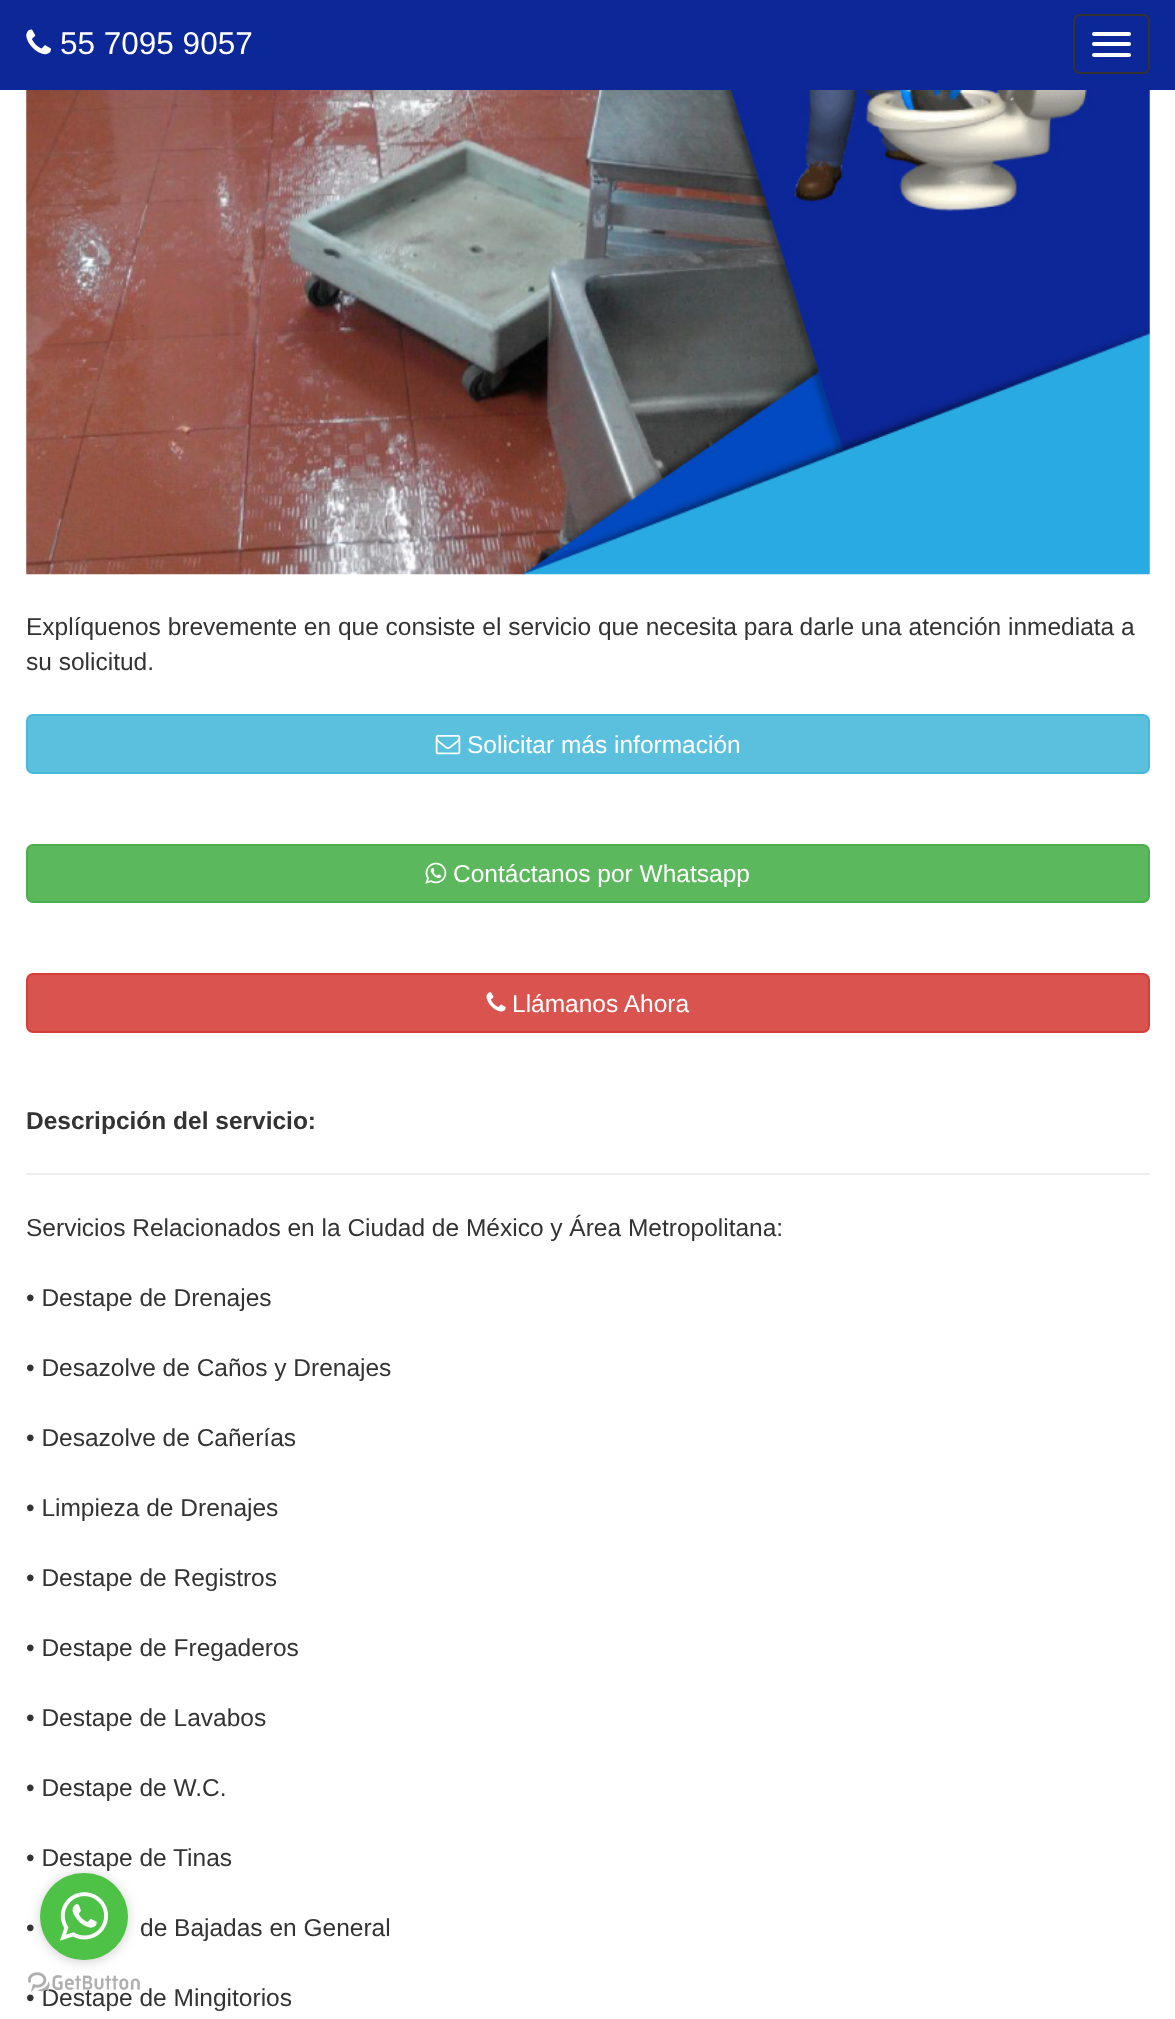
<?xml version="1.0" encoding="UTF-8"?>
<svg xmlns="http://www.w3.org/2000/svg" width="1175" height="2019">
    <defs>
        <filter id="blur1" x="-50%" y="-200%" width="200%" height="500%"><feGaussianBlur stdDeviation="6"/></filter>
    </defs>
    <rect width="100%" height="100%" fill="#FFFFFF"/>
    <rect x="0" y="0" width="1175" height="90" fill="#0C2798"/>
    <image x="26" y="29" width="25" height="26" href="img_01.png"/>
    <text x="60" y="54" font-family="Liberation Sans" font-size="31.5" fill="#FFFFFF">55 7095 9057</text>
    <rect x="1074" y="15" width="75" height="58" rx="6" fill="none" stroke="#333333" stroke-width="2"/>
    <rect x="1092" y="32" width="39" height="4" rx="2" fill="#FFFFFF"/>
    <rect x="1092" y="42" width="39" height="4" rx="2" fill="#FFFFFF"/>
    <rect x="1092" y="53" width="39" height="4" rx="2" fill="#FFFFFF"/>
    <image x="26" y="90" width="1124" height="485" href="img_02.png"/>
    <text font-family="Liberation Sans" font-size="24.5" fill="#333333">
        <tspan x="26" y="635">Explíquenos brevemente en que consiste el servicio que necesita para darle una atención inmediata a</tspan>
        <tspan x="26" y="670">su solicitud.</tspan>
    </text>
    <rect x="27" y="715" width="1122" height="58" rx="6" fill="#5BC0DE" stroke="#46B8DA" stroke-width="2"/>
    <image x="435" y="735" width="26" height="20" href="img_03.png"/>
    <text x="467" y="753" font-family="Liberation Sans" font-size="24.5" fill="#FFFFFF">Solicitar más información</text>
    <rect x="27" y="845" width="1122" height="57" rx="6" fill="#5CB85C" stroke="#4CAE4C" stroke-width="2"/>
    <image x="425" y="862" width="22" height="22" href="img_04.png"/>
    <text x="453" y="882" font-family="Liberation Sans" font-size="24.5" fill="#FFFFFF">Contáctanos por Whatsapp</text>
    <rect x="27" y="974" width="1122" height="58" rx="6" fill="#D9534F" stroke="#D43F3A" stroke-width="2"/>
    <image x="486" y="992" width="20" height="20" href="img_05.png"/>
    <text x="512" y="1012" font-family="Liberation Sans" font-size="24.5" fill="#FFFFFF">Llámanos Ahora</text>
    <text x="26" y="1129" font-family="Liberation Sans" font-size="24.5" font-weight="700" fill="#333333">Descripción del servicio:</text>
    <rect x="26" y="1173" width="1124" height="2" fill="#EEEEEE"/>
    <text x="26" y="1236" font-family="Liberation Sans" font-size="24.5" fill="#333333">Servicios Relacionados en la Ciudad de México y Área Metropolitana:</text>
    <text x="26" y="1306" font-family="Liberation Sans" font-size="24.5" fill="#333333">• Destape de Drenajes</text>
    <text x="26" y="1376" font-family="Liberation Sans" font-size="24.5" fill="#333333">• Desazolve de Caños y Drenajes</text>
    <text x="26" y="1446" font-family="Liberation Sans" font-size="24.5" fill="#333333">• Desazolve de Cañerías</text>
    <text x="26" y="1516" font-family="Liberation Sans" font-size="24.5" fill="#333333">• Limpieza de Drenajes</text>
    <text x="26" y="1586" font-family="Liberation Sans" font-size="24.5" fill="#333333">• Destape de Registros</text>
    <text x="26" y="1656" font-family="Liberation Sans" font-size="24.5" fill="#333333">• Destape de Fregaderos</text>
    <text x="26" y="1726" font-family="Liberation Sans" font-size="24.5" fill="#333333">• Destape de Lavabos</text>
    <text x="26" y="1796" font-family="Liberation Sans" font-size="24.5" fill="#333333">• Destape de W.C.</text>
    <text x="26" y="1866" font-family="Liberation Sans" font-size="24.5" fill="#333333">• Destape de Tinas</text>
    <text x="26" y="1936" font-family="Liberation Sans" font-size="24.5" fill="#333333">•</text>
    <text x="140" y="1936" font-family="Liberation Sans" font-size="24.5" fill="#333333">de Bajadas en General</text>
    <text x="26" y="2006" font-family="Liberation Sans" font-size="24.5" fill="#333333">• Destape de Mingitorios</text>
    <image x="28" y="1972" width="112" height="20" href="img_07.png"/>
    <rect x="40" y="1874" width="88" height="88" rx="44" fill="#888888" fill-opacity="0.4" filter="url(#blur1)"/>
    <rect x="40" y="1873" width="88" height="87" rx="43.5" fill="#4DC247"/>
    <image x="60" y="1892" width="49" height="49" href="img_06.png"/>
</svg>
